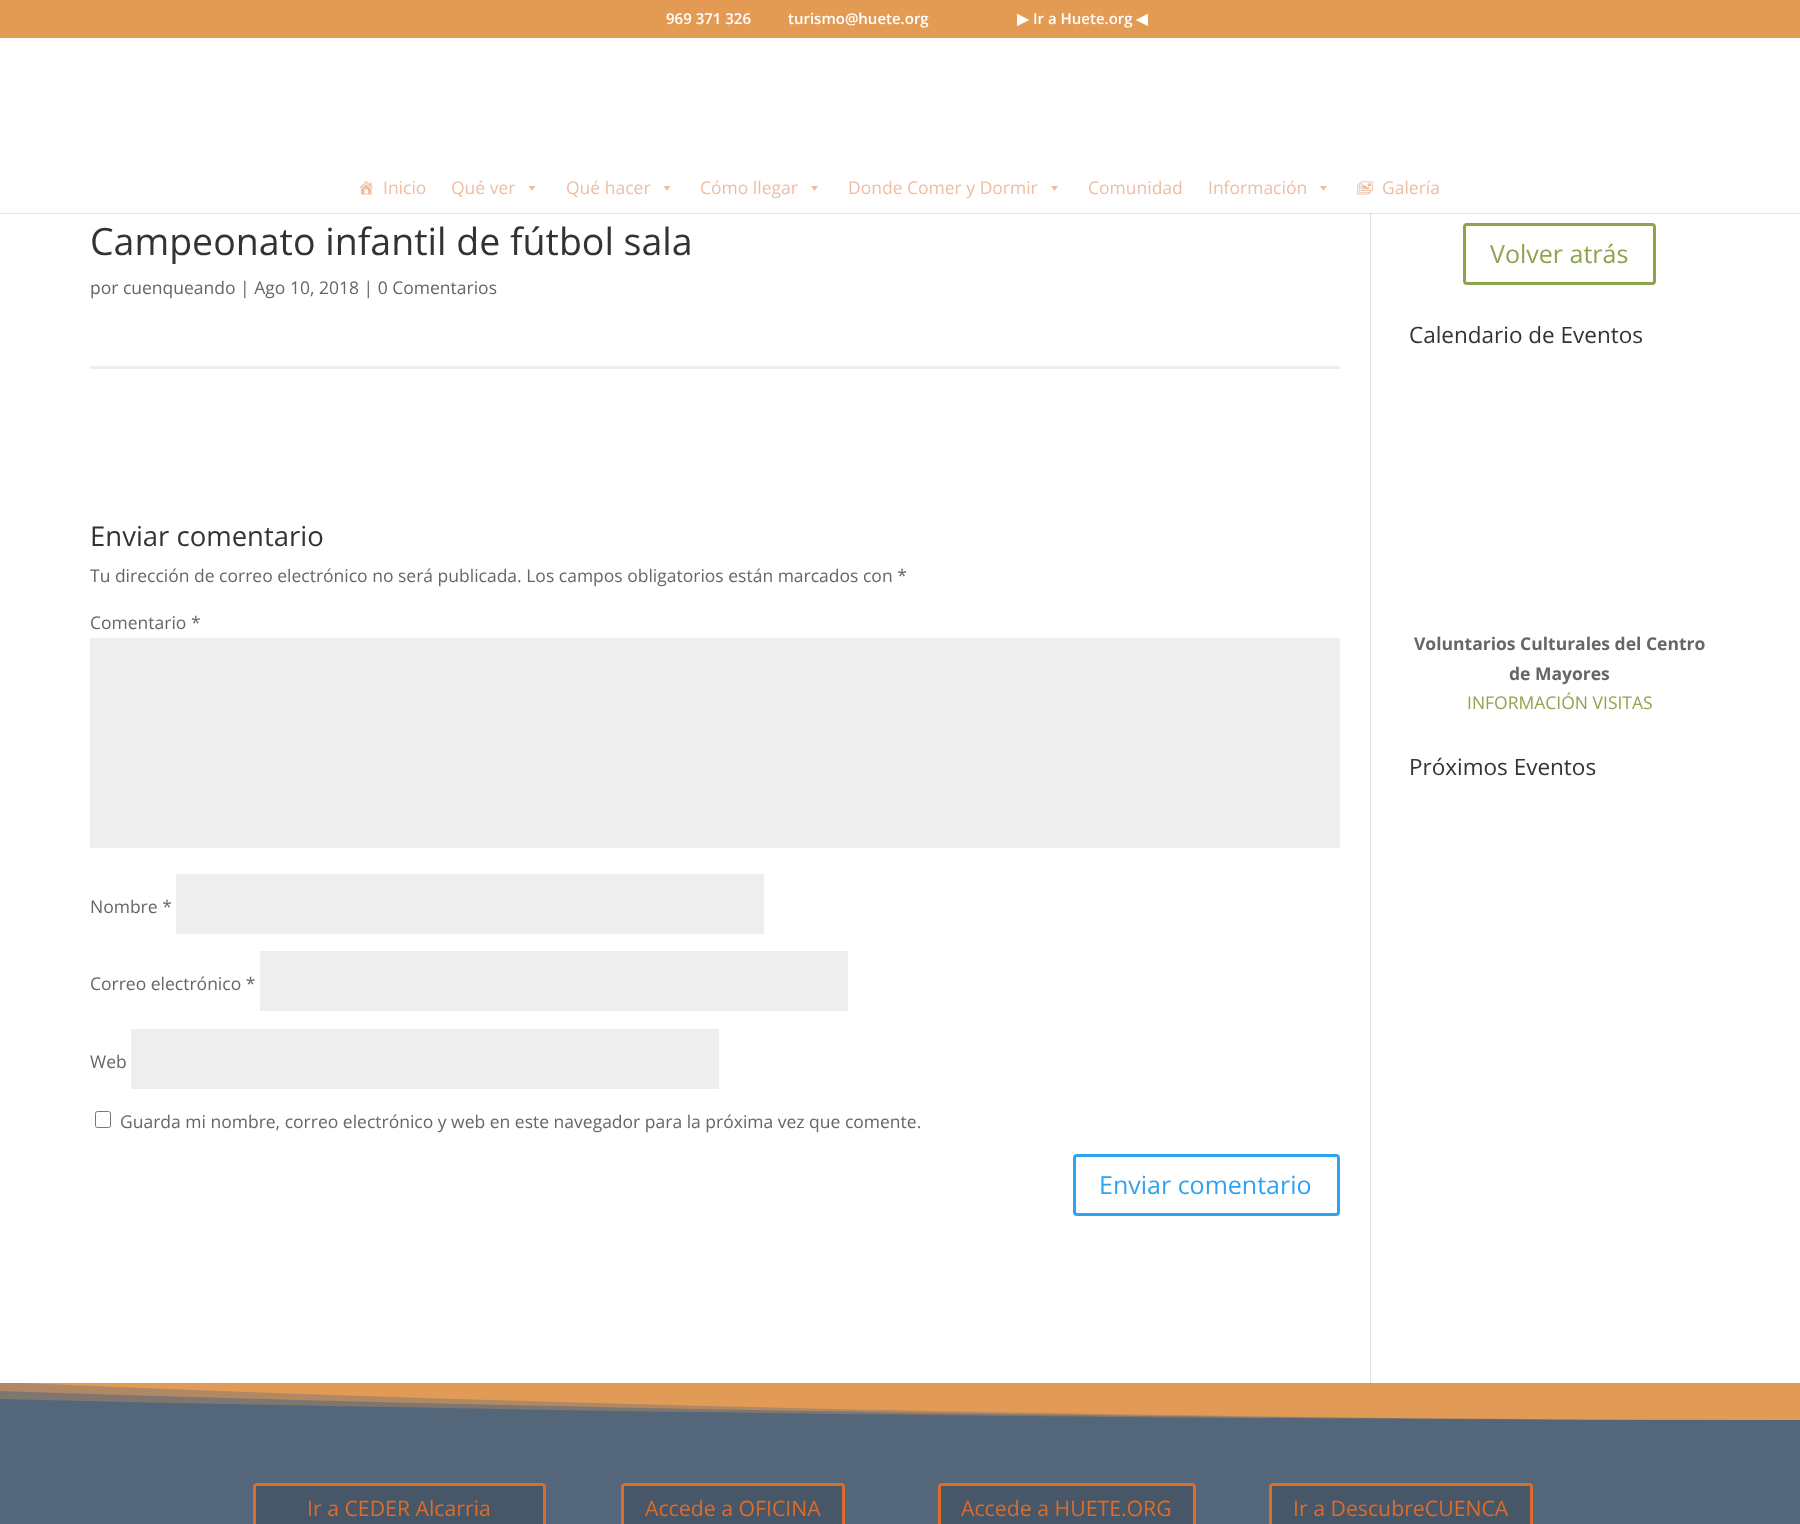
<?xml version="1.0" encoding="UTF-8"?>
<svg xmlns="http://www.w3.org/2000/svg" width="1800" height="1524">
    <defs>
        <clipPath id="clip1"><rect x="0" y="1383" width="1800" height="37"/></clipPath>
    </defs>
    <rect width="100%" height="100%" fill="#FFFFFF"/>
    <rect x="0" y="213" width="1800" height="1" fill="#E6E6E6"/>
    <rect x="0" y="0" width="1800" height="38" fill="#E39B54"/>
    <text x="666" y="24" font-family="Open Sans" font-size="15" font-weight="600" fill="#FFFFFF">969 371 326</text>
    <text x="788" y="24" font-family="Open Sans" font-size="15" font-weight="600" fill="#FFFFFF">turismo@huete.org</text>
    <text x="1017" y="24" font-family="DejaVu Sans" font-size="15" font-weight="700" fill="#FFFFFF">▶</text>
    <text x="1033" y="24" font-family="Open Sans" font-size="15" font-weight="600" fill="#FFFFFF">Ir a Huete.org</text>
    <text x="1136" y="24" font-family="DejaVu Sans" font-size="15" font-weight="700" fill="#FFFFFF">◀</text>
    <rect x="1370" y="212" width="1" height="2" fill="#CBCBCB"/>
    <rect x="1370" y="212" width="1" height="1" fill="#FFFFFF"/>
    <image x="359" y="181" width="14" height="14" href="img_01.png"/>
    <text x="383" y="194" font-family="Open Sans" font-size="17.5" fill="#EDBEA3">Inicio</text>
    <text x="451" y="194" font-family="Open Sans" font-size="17.5" fill="#EDBEA3">Qué ver</text>
    <path d="M 535.5 186 L 532 191 L 528.5 186 Z" fill="#EDBEA3"/>
    <text x="566" y="194" font-family="Open Sans" font-size="17.5" fill="#EDBEA3">Qué hacer</text>
    <path d="M 670.5 186 L 667 191 L 663.5 186 Z" fill="#EDBEA3"/>
    <text x="700" y="194" font-family="Open Sans" font-size="17.5" fill="#EDBEA3">Cómo llegar</text>
    <path d="M 818 186 L 814.5 191 L 811 186 Z" fill="#EDBEA3"/>
    <text x="848" y="194" font-family="Open Sans" font-size="17.5" fill="#EDBEA3">Donde Comer y Dormir</text>
    <path d="M 1058 186 L 1054.5 191 L 1051 186 Z" fill="#EDBEA3"/>
    <text x="1088" y="194" font-family="Open Sans" font-size="17.5" fill="#EDBEA3">Comunidad</text>
    <text x="1208" y="194" font-family="Open Sans" font-size="17.5" fill="#EDBEA3">Información</text>
    <path d="M 1327 186 L 1323.5 191 L 1320 186 Z" fill="#EDBEA3"/>
    <image x="1357" y="181" width="16" height="14" href="img_02.png"/>
    <text x="1382" y="194" font-family="Open Sans" font-size="17.5" fill="#EDBEA3">Galería</text>
    <rect x="1370" y="214" width="1" height="1169" fill="#E2E2E2"/>
    <text x="90" y="255" font-family="Open Sans" font-size="37.5" fill="#333333">Campeonato infantil de fútbol sala</text>
    <text x="90" y="294" font-family="Open Sans" font-size="17.5" fill="#666666">por cuenqueando | Ago 10, 2018 | 0 Comentarios</text>
    <rect x="90" y="366" width="1250" height="3" fill="#EEEEEE"/>
    <text x="90" y="546" font-family="Open Sans" font-size="27.5" fill="#333333">Enviar comentario</text>
    <text x="90" y="582" font-family="Open Sans" font-size="17.5" fill="#666666">Tu dirección de correo electrónico no será publicada. Los campos obligatorios están marcados con *</text>
    <text x="90" y="629" font-family="Open Sans" font-size="17.5" fill="#666666">Comentario *</text>
    <rect x="90" y="638" width="1250" height="210" fill="#EEEEEE"/>
    <text x="90" y="913" font-family="Open Sans" font-size="17.5" fill="#666666">Nombre *</text>
    <rect x="176" y="874" width="588" height="60" fill="#EEEEEE"/>
    <text x="90" y="990" font-family="Open Sans" font-size="17.5" fill="#666666">Correo electrónico *</text>
    <rect x="260" y="951" width="588" height="60" fill="#EEEEEE"/>
    <text x="90" y="1068" font-family="Open Sans" font-size="17.5" fill="#666666">Web</text>
    <rect x="131" y="1029" width="588" height="60" fill="#EEEEEE"/>
    <rect x="95.5" y="1111.5" width="15" height="16" rx="2" fill="none" stroke="#767676"/>
    <text x="120" y="1128" font-family="Open Sans" font-size="17.5" fill="#666666">Guarda mi nombre, correo electrónico y web en este navegador para la próxima vez que comente.</text>
    <rect x="1074.5" y="1155.5" width="264" height="59" rx="2.5" fill="none" stroke="#2EA3F2" stroke-width="3"/>
    <text x="1099" y="1194" font-family="Open Sans" font-size="25" fill="#2EA3F2">Enviar comentario</text>
    <rect x="1464.5" y="224.5" width="190" height="59" rx="2.5" fill="none" stroke="#8CA54D" stroke-width="3"/>
    <text x="1490" y="263" font-family="Open Sans" font-size="25" fill="#8CA54D">Volver atrás</text>
    <text x="1409" y="343" font-family="Open Sans" font-size="22.5" fill="#333333">Calendario de Eventos</text>
    <text x="1414" y="650" font-family="Open Sans" font-size="17.5" font-weight="700" fill="#666666">Voluntarios Culturales del Centro</text>
    <text x="1509" y="680" font-family="Open Sans" font-size="17.5" font-weight="700" fill="#666666">de Mayores</text>
    <text x="1467" y="709" font-family="Open Sans" font-size="17.5" fill="#8CA54D">INFORMACIÓN VISITAS</text>
    <text x="1409" y="775" font-family="Open Sans" font-size="22.5" fill="#333333">Próximos Eventos</text>
    <rect x="0" y="1399" width="1800" height="125" fill="#54667A"/>
    <g clip-path="url(#clip1)">
        <path d="M 0 1382 V 1399 C 0 1399 806 1420 1800 1420 V 1382 Z" fill="#7F7670"/>
        <path d="M 0 1382 V 1391 C 0 1391 806 1420 1800 1420 V 1382 Z" fill="#E29B57" fill-opacity="0.5"/>
        <path d="M 0 1382 C 0 1382 806 1420 1800 1420 V 1382 Z" fill="#E29B57"/>
    </g>
    <rect x="254.5" y="1484.5" width="290" height="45" rx="2.5" fill="#475768" stroke="#DB6C2C" stroke-width="3"/>
    <text x="307" y="1516" font-family="Open Sans" font-size="21.25" fill="#DB6C2C">Ir a CEDER Alcarria</text>
    <rect x="622.5" y="1484.5" width="221" height="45" rx="2.5" fill="#475768" stroke="#DB6C2C" stroke-width="3"/>
    <text x="645" y="1516" font-family="Open Sans" font-size="21.25" fill="#DB6C2C">Accede a OFICINA</text>
    <rect x="939.5" y="1484.5" width="255" height="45" rx="2.5" fill="#475768" stroke="#DB6C2C" stroke-width="3"/>
    <text x="961" y="1516" font-family="Open Sans" font-size="21.25" fill="#DB6C2C">Accede a HUETE.ORG</text>
    <rect x="1270.5" y="1484.5" width="261" height="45" rx="2.5" fill="#475768" stroke="#DB6C2C" stroke-width="3"/>
    <text x="1293" y="1516" font-family="Open Sans" font-size="21.25" fill="#DB6C2C">Ir a DescubreCUENCA</text>
</svg>
